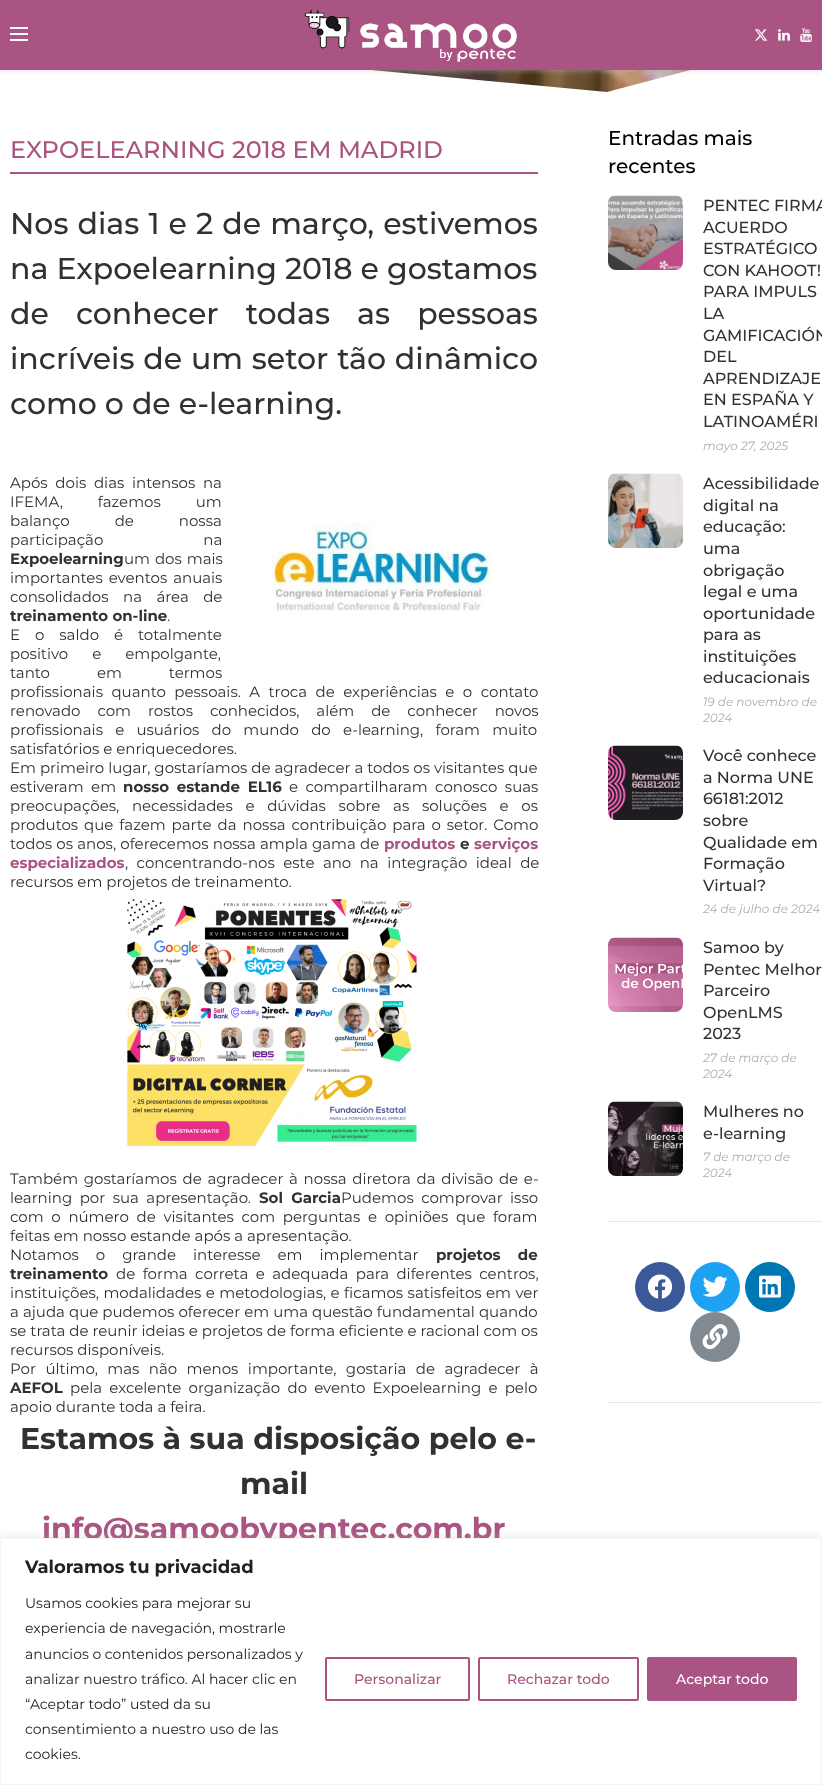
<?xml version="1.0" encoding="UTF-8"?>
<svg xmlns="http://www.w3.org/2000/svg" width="822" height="1785">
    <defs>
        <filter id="blur1" x="-50%" y="-200%" width="200%" height="500%"><feGaussianBlur stdDeviation="2.5"/></filter>
        <filter id="blur2" x="-50%" y="-200%" width="200%" height="500%"><feGaussianBlur stdDeviation="5"/></filter>
    </defs>
    <rect width="100%" height="100%" fill="#FFFFFF"/>
    <image x="373" y="70" width="318" height="22" href="img_05.png"/>
    <path d="M 607 92 L -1 35 V 95 H 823 V 35 Z" fill="#FFFFFF"/>
    <rect x="0" y="1" width="822" height="70" fill="#BEBEBE" fill-opacity="0.46" filter="url(#blur1)"/>
    <rect x="0" y="0" width="822" height="70" fill="#A95482"/>
    <rect x="10" y="27" width="18" height="2" fill="#FFFFFF"/>
    <rect x="10" y="33" width="18" height="2" fill="#FFFFFF"/>
    <rect x="10" y="39" width="18" height="2" fill="#FFFFFF"/>
    <image x="304" y="8" width="213" height="54" href="img_01.png"/>
    <image x="754" y="29" width="14" height="12" href="img_02.png"/>
    <image x="778" y="29" width="12" height="12" href="img_03.png"/>
    <image x="800" y="28" width="12" height="14" href="img_04.png"/>
    <text x="10" y="158" font-family="Montserrat" font-size="24" font-weight="500" fill="#A95482">EXPOELEARNING 2018 EM MADRID</text>
    <rect x="10" y="172" width="528" height="2" fill="#A95482"/>
    <text font-family="Montserrat" font-size="30" font-weight="500" fill="#313131">
        <tspan x="10" y="234" word-spacing="1">Nos dias 1 e 2 de março, estivemos</tspan>
        <tspan x="10" y="279">na Expoelearning 2018 e gostamos</tspan>
        <tspan x="10" y="324" word-spacing="19">de conhecer todas as pessoas</tspan>
        <tspan x="10" y="369" word-spacing="0.75">incríveis de um setor tão dinâmico</tspan>
        <tspan x="10" y="414">como o de e-learning.</tspan>
    </text>
    <text font-family="Montserrat" font-size="15" fill="#313131">
        <tspan x="10" y="488" word-spacing="3.75">Após dois dias intensos na</tspan>
        <tspan x="10" y="507" word-spacing="31">IFEMA, fazemos um</tspan>
        <tspan x="10" y="526" word-spacing="41">balanço de nossa</tspan>
    </text>
    <image x="271" y="522" width="222" height="89" href="img_06.png"/>
    <text x="10" y="545" word-spacing="96" font-family="Montserrat" font-size="15" fill="#313131">participação na</text>
    <text x="10" y="564" font-family="Montserrat" font-size="15" font-weight="700" fill="#313131">Expoelearning</text>
    <text x="124" y="564" word-spacing="1" font-family="Montserrat" font-size="15" fill="#313131">um dos mais</text>
    <text font-family="Montserrat" font-size="15" fill="#313131">
        <tspan x="10" y="583" word-spacing="2">importantes eventos anuais</tspan>
        <tspan x="10" y="602" word-spacing="10.5">consolidados na área de</tspan>
    </text>
    <text x="10" y="621" font-family="Montserrat" font-size="15" font-weight="700" fill="#313131">treinamento on-line</text>
    <text x="167" y="621" font-family="Montserrat" font-size="15" fill="#313131">.</text>
    <text font-family="Montserrat" font-size="15" fill="#313131">
        <tspan x="10" y="640" word-spacing="11">E o saldo é totalmente</tspan>
        <tspan x="10" y="659" word-spacing="20">positivo e empolgante,</tspan>
        <tspan x="10" y="678" word-spacing="43">tanto em termos</tspan>
        <tspan x="10" y="697" word-spacing="4.5">profissionais quanto pessoais. A troca de experiências e o contato</tspan>
        <tspan x="10" y="716" word-spacing="13">renovado com rostos conhecidos, além de conhecer novos</tspan>
        <tspan x="10" y="735" word-spacing="8.25">profissionais e usuários do mundo do e-learning, foram muito</tspan>
        <tspan x="10" y="754">satisfatórios e enriquecedores.</tspan>
        <tspan x="10" y="773">Em primeiro lugar, gostaríamos de agradecer a todos os visitantes que</tspan>
        <tspan x="10" y="792" word-spacing="3.5">estiveram em</tspan>
    </text>
    <text x="123" y="792" word-spacing="3.5" font-family="Montserrat" font-size="15" font-weight="700" fill="#313131">nosso estande EL16</text>
    <text x="289" y="792" word-spacing="3.5" font-family="Montserrat" font-size="15" fill="#313131">e compartilharam conosco suas</text>
    <text font-family="Montserrat" font-size="15" fill="#313131">
        <tspan x="10" y="811" word-spacing="8.75">preocupações, necessidades e dúvidas sobre as soluções e os</tspan>
        <tspan x="10" y="830" word-spacing="2">produtos que fazem parte da nossa contribuição para o setor. Como</tspan>
        <tspan x="10" y="849" word-spacing="0.25">todos os anos, oferecemos nossa ampla gama de</tspan>
    </text>
    <text x="384" y="849" font-family="Montserrat" font-size="15" font-weight="700" fill="#A95482">produtos</text>
    <text x="460" y="849" font-family="Montserrat" font-size="15" font-weight="700" fill="#313131">e</text>
    <text x="474" y="849" font-family="Montserrat" font-size="15" font-weight="700" fill="#A95482">serviços</text>
    <text x="10" y="868" font-family="Montserrat" font-size="15" font-weight="700" fill="#A95482">especializados</text>
    <text x="125" y="868" word-spacing="4.5" font-family="Montserrat" font-size="15" fill="#313131">, concentrando-nos este ano na integração ideal de</text>
    <text x="10" y="887" font-family="Montserrat" font-size="15" fill="#313131">recursos em projetos de treinamento.</text>
    <image x="127" y="899" width="290" height="247" href="img_07.png"/>
    <text font-family="Montserrat" font-size="15" fill="#313131">
        <tspan x="10" y="1184" word-spacing="1.75">Também gostaríamos de agradecer à nossa diretora da divisão de e-</tspan>
        <tspan x="10" y="1203" word-spacing="3.5">learning por sua apresentação.</tspan>
    </text>
    <text x="259" y="1203" word-spacing="4" font-family="Montserrat" font-size="15" font-weight="700" fill="#313131">Sol Garcia</text>
    <text x="341" y="1203" word-spacing="3.5" font-family="Montserrat" font-size="15" fill="#313131">Pudemos comprovar isso</text>
    <text font-family="Montserrat" font-size="15" fill="#313131">
        <tspan x="10" y="1222" word-spacing="3.75">com o número de visitantes com perguntas e opiniões que foram</tspan>
        <tspan x="10" y="1241">feitas em nosso estande após a apresentação.</tspan>
        <tspan x="10" y="1260" word-spacing="13">Notamos o grande interesse em implementar</tspan>
    </text>
    <text x="436" y="1260" word-spacing="13" font-family="Montserrat" font-size="15" font-weight="700" fill="#313131">projetos de</text>
    <text x="10" y="1279" font-family="Montserrat" font-size="15" font-weight="700" fill="#313131">treinamento</text>
    <text x="116" y="1279" word-spacing="3.5" font-family="Montserrat" font-size="15" fill="#313131">de forma correta e adequada para diferentes centros,</text>
    <text font-family="Montserrat" font-size="15" fill="#313131">
        <tspan x="10" y="1298" word-spacing="0.5">instituições, modalidades e metodologias, e ficamos satisfeitos em ver</tspan>
        <tspan x="10" y="1317" word-spacing="0.1">a ajuda que pudemos oferecer em uma questão fundamental quando</tspan>
        <tspan x="10" y="1336">se trata de reunir ideias e projetos de forma eficiente e racional com os</tspan>
        <tspan x="10" y="1355">recursos disponíveis.</tspan>
        <tspan x="10" y="1374" word-spacing="5.5">Por último, mas não menos importante, gostaria de agradecer à</tspan>
    </text>
    <text x="10" y="1393" font-family="Montserrat" font-size="15" font-weight="700" fill="#313131">AEFOL</text>
    <text x="70" y="1393" word-spacing="3.25" font-family="Montserrat" font-size="15" fill="#313131">pela excelente organização do evento Expoelearning e pelo</text>
    <text x="10" y="1412" font-family="Montserrat" font-size="15" fill="#313131">apoio durante toda a feira.</text>
    <text x="20" y="1449" font-family="Montserrat" font-size="30" font-weight="700" fill="#313131">Estamos à sua disposição pelo e-</text>
    <text x="240" y="1494" font-family="Montserrat" font-size="30" font-weight="700" fill="#313131">mail</text>
    <text x="42" y="1539" font-family="Montserrat" font-size="30" font-weight="700" fill="#A95482">info@samoobypentec.com.br</text>
    <text font-family="Montserrat" font-size="20" font-weight="500" fill="#000000">
        <tspan x="608" y="145">Entradas mais</tspan>
        <tspan x="608" y="173">recentes</tspan>
    </text>
    <image x="608" y="195" width="75" height="75" href="img_08.png"/>
    <text font-family="Montserrat" font-size="16" font-weight="500" fill="#37302F">
        <tspan x="703" y="211">PENTEC FIRMA</tspan>
        <tspan x="703" y="233">ACUERDO</tspan>
        <tspan x="703" y="254">ESTRATÉGICO</tspan>
        <tspan x="703" y="276">CON KAHOOT!</tspan>
        <tspan x="703" y="297">PARA IMPULS</tspan>
        <tspan x="703" y="319">LA</tspan>
        <tspan x="703" y="341">GAMIFICACIÓN</tspan>
        <tspan x="703" y="362">DEL</tspan>
        <tspan x="703" y="384">APRENDIZAJE</tspan>
        <tspan x="703" y="405">EN ESPAÑA Y</tspan>
        <tspan x="703" y="427">LATINOAMÉRI</tspan>
    </text>
    <text x="703" y="450" font-family="Montserrat" font-size="12" font-style="italic" fill="#ADADAD">mayo 27, 2025</text>
    <image x="608" y="473" width="75" height="75" href="img_09.png"/>
    <text font-family="Montserrat" font-size="16" font-weight="500" fill="#37302F">
        <tspan x="703" y="489">Acessibilidade</tspan>
        <tspan x="703" y="511">digital na</tspan>
        <tspan x="703" y="532">educação:</tspan>
        <tspan x="703" y="554">uma</tspan>
        <tspan x="703" y="576">obrigação</tspan>
        <tspan x="703" y="597">legal e uma</tspan>
        <tspan x="703" y="619">oportunidade</tspan>
        <tspan x="703" y="640">para as</tspan>
        <tspan x="703" y="662">instituições</tspan>
        <tspan x="703" y="683">educacionais</tspan>
    </text>
    <text font-family="Montserrat" font-size="12" font-style="italic" fill="#ADADAD">
        <tspan x="703" y="706">19 de novembro de</tspan>
        <tspan x="703" y="722">2024</tspan>
    </text>
    <image x="608" y="745" width="75" height="75" href="img_10.png"/>
    <text font-family="Montserrat" font-size="16" font-weight="500" fill="#37302F">
        <tspan x="703" y="761">Você conhece</tspan>
        <tspan x="703" y="783">a Norma UNE</tspan>
        <tspan x="703" y="804">66181:2012</tspan>
        <tspan x="703" y="826">sobre</tspan>
        <tspan x="703" y="848">Qualidade em</tspan>
        <tspan x="703" y="869">Formação</tspan>
        <tspan x="703" y="891">Virtual?</tspan>
    </text>
    <text x="703" y="913" font-family="Montserrat" font-size="12" font-style="italic" fill="#ADADAD">24 de julho de 2024</text>
    <image x="608" y="937" width="75" height="75" href="img_11.png"/>
    <text font-family="Montserrat" font-size="16" font-weight="500" fill="#37302F">
        <tspan x="703" y="953">Samoo by</tspan>
        <tspan x="703" y="975">Pentec Melhor</tspan>
        <tspan x="703" y="996">Parceiro</tspan>
        <tspan x="703" y="1018">OpenLMS</tspan>
        <tspan x="703" y="1039">2023</tspan>
    </text>
    <text font-family="Montserrat" font-size="12" font-style="italic" fill="#ADADAD">
        <tspan x="703" y="1062">27 de março de</tspan>
        <tspan x="703" y="1078">2024</tspan>
    </text>
    <image x="608" y="1101" width="75" height="75" href="img_12.png"/>
    <text font-family="Montserrat" font-size="16" font-weight="500" fill="#37302F">
        <tspan x="703" y="1117">Mulheres no</tspan>
        <tspan x="703" y="1139">e-learning</tspan>
    </text>
    <text font-family="Montserrat" font-size="12" font-style="italic" fill="#ADADAD">
        <tspan x="703" y="1161">7 de março de</tspan>
        <tspan x="703" y="1177">2024</tspan>
    </text>
    <rect x="608" y="1221" width="214" height="1" fill="#E6E6E6"/>
    <circle cx="660" cy="1287" r="25" fill="#3B5998"/>
    <image x="647" y="1274" width="26" height="25" href="img_13.png"/>
    <circle cx="715" cy="1287" r="25" fill="#1DA1F2"/>
    <image x="702" y="1276" width="26" height="21" href="img_14.png"/>
    <circle cx="770" cy="1287" r="25" fill="#0077B5"/>
    <image x="759" y="1275" width="22" height="23" href="img_15.png"/>
    <circle cx="715" cy="1337" r="25" fill="#818A91"/>
    <image x="702" y="1324" width="26" height="26" href="img_16.png"/>
    <rect x="608" y="1402" width="214" height="1" fill="#E6E6E6"/>
    <rect x="0" y="1537" width="822" height="247" fill="#ACABAB" fill-opacity="0.3" filter="url(#blur2)"/>
    <rect x="0.5" y="1538.5" width="821" height="246" fill="#FFFFFF" stroke="#F4F4F4"/>
    <text x="25" y="1573" font-family="Montserrat" font-size="18" font-weight="700" fill="#212121">Valoramos tu privacidad</text>
    <text font-family="Montserrat" font-size="14" fill="#212121">
        <tspan x="25" y="1608">Usamos cookies para mejorar su</tspan>
        <tspan x="25" y="1633">experiencia de navegación, mostrarle</tspan>
        <tspan x="25" y="1659">anuncios o contenidos personalizados y</tspan>
        <tspan x="25" y="1684">analizar nuestro tráfico. Al hacer clic en</tspan>
        <tspan x="25" y="1709">“Aceptar todo” usted da su</tspan>
        <tspan x="25" y="1734">consentimiento a nuestro uso de las</tspan>
        <tspan x="25" y="1759">cookies.</tspan>
    </text>
    <rect x="326" y="1658" width="143" height="42" rx="1" fill="none" stroke="#A95482" stroke-width="2"/>
    <text x="354" y="1684" font-family="Montserrat" font-size="14" font-weight="500" fill="#A95482">Personalizar</text>
    <rect x="479" y="1658" width="159" height="42" rx="1" fill="none" stroke="#A95482" stroke-width="2"/>
    <text x="507" y="1684" font-family="Montserrat" font-size="14" font-weight="500" fill="#A95482">Rechazar todo</text>
    <rect x="648" y="1658" width="148" height="42" rx="1" fill="#A95482" stroke="#A95482" stroke-width="2"/>
    <text x="676" y="1684" font-family="Montserrat" font-size="14" font-weight="500" fill="#FFFFFF">Aceptar todo</text>
</svg>
